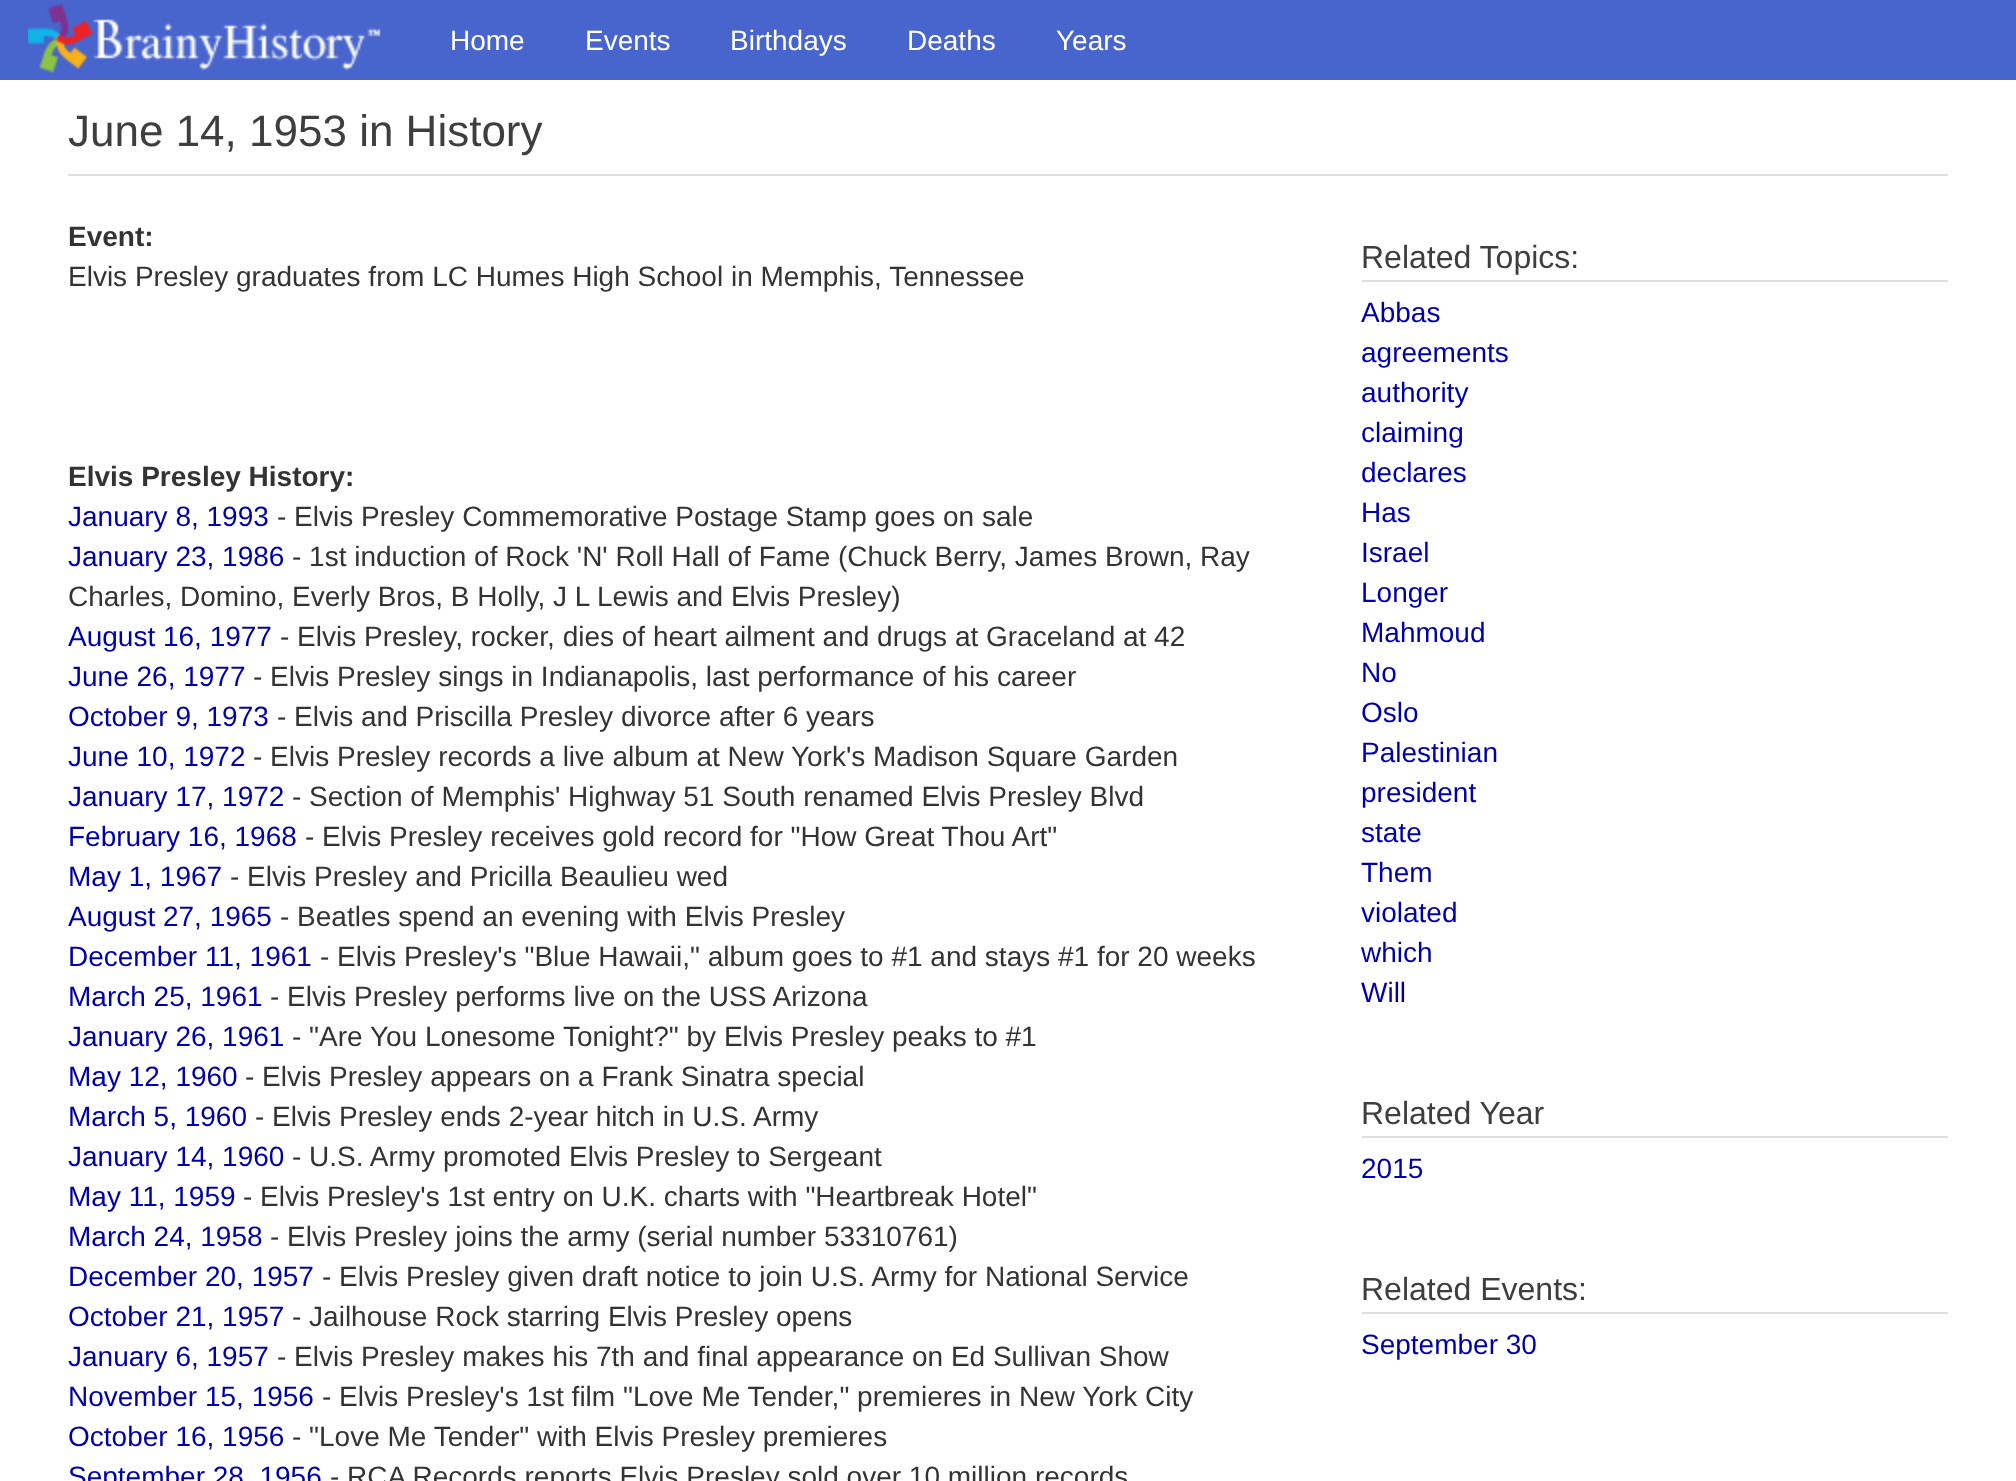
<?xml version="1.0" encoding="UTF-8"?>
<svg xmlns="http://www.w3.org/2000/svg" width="2016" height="1481">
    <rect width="100%" height="100%" fill="#FFFFFF"/>
    <rect x="0" y="0" width="2016" height="80" fill="#4865CD"/>
    <image x="28" y="3" width="353" height="70" href="img_01.png"/>
    <text x="450" y="50" font-family="Liberation Sans" font-size="28" fill="#FFFFFF">Home</text>
    <text x="585" y="50" font-family="Liberation Sans" font-size="28" fill="#FFFFFF">Events</text>
    <text x="730" y="50" font-family="Liberation Sans" font-size="28" fill="#FFFFFF">Birthdays</text>
    <text x="907" y="50" font-family="Liberation Sans" font-size="28" fill="#FFFFFF">Deaths</text>
    <text x="1056" y="50" font-family="Liberation Sans" font-size="28" fill="#FFFFFF">Years</text>
    <rect x="68" y="174" width="1880" height="2" fill="#E0E0E0"/>
    <text x="68" y="146" font-family="Liberation Sans" font-size="44" fill="#3E3E3E">June 14, 1953 in History</text>
    <text x="68" y="246" font-family="Liberation Sans" font-size="28" font-weight="700" fill="#333333">Event:</text>
    <text x="68" y="286" font-family="Liberation Sans" font-size="28" fill="#333333">Elvis Presley graduates from LC Humes High School in Memphis, Tennessee</text>
    <text x="68" y="486" font-family="Liberation Sans" font-size="28" font-weight="700" fill="#333333">Elvis Presley History:</text>
    <text x="68" y="526" font-family="Liberation Sans" font-size="28" fill="#0000AA">January 8, 1993</text>
    <text x="277" y="526" font-family="Liberation Sans" font-size="28" fill="#333333">- Elvis Presley Commemorative Postage Stamp goes on sale</text>
    <text x="68" y="566" font-family="Liberation Sans" font-size="28" fill="#0000AA">January 23, 1986</text>
    <text x="292" y="566" font-family="Liberation Sans" font-size="28" fill="#333333">- 1st induction of Rock 'N' Roll Hall of Fame (Chuck Berry, James Brown, Ray</text>
    <text x="68" y="606" font-family="Liberation Sans" font-size="28" fill="#333333">Charles, Domino, Everly Bros, B Holly, J L Lewis and Elvis Presley)</text>
    <text x="68" y="646" font-family="Liberation Sans" font-size="28" fill="#0000AA">August 16, 1977</text>
    <text x="280" y="646" font-family="Liberation Sans" font-size="28" fill="#333333">- Elvis Presley, rocker, dies of heart ailment and drugs at Graceland at 42</text>
    <text x="68" y="686" font-family="Liberation Sans" font-size="28" fill="#0000AA">June 26, 1977</text>
    <text x="253" y="686" font-family="Liberation Sans" font-size="28" fill="#333333">- Elvis Presley sings in Indianapolis, last performance of his career</text>
    <text x="68" y="726" font-family="Liberation Sans" font-size="28" fill="#0000AA">October 9, 1973</text>
    <text x="277" y="726" font-family="Liberation Sans" font-size="28" fill="#333333">- Elvis and Priscilla Presley divorce after 6 years</text>
    <text x="68" y="766" font-family="Liberation Sans" font-size="28" fill="#0000AA">June 10, 1972</text>
    <text x="253" y="766" font-family="Liberation Sans" font-size="28" fill="#333333">- Elvis Presley records a live album at New York's Madison Square Garden</text>
    <text x="68" y="806" font-family="Liberation Sans" font-size="28" fill="#0000AA">January 17, 1972</text>
    <text x="292" y="806" font-family="Liberation Sans" font-size="28" fill="#333333">- Section of Memphis' Highway 51 South renamed Elvis Presley Blvd</text>
    <text x="68" y="846" font-family="Liberation Sans" font-size="28" fill="#0000AA">February 16, 1968</text>
    <text x="305" y="846" font-family="Liberation Sans" font-size="28" fill="#333333">- Elvis Presley receives gold record for "How Great Thou Art"</text>
    <text x="68" y="886" font-family="Liberation Sans" font-size="28" fill="#0000AA">May 1, 1967</text>
    <text x="230" y="886" font-family="Liberation Sans" font-size="28" fill="#333333">- Elvis Presley and Pricilla Beaulieu wed</text>
    <text x="68" y="926" font-family="Liberation Sans" font-size="28" fill="#0000AA">August 27, 1965</text>
    <text x="280" y="926" font-family="Liberation Sans" font-size="28" fill="#333333">- Beatles spend an evening with Elvis Presley</text>
    <text x="68" y="966" font-family="Liberation Sans" font-size="28" fill="#0000AA">December 11, 1961</text>
    <text x="320" y="966" font-family="Liberation Sans" font-size="28" fill="#333333">- Elvis Presley's "Blue Hawaii," album goes to #1 and stays #1 for 20 weeks</text>
    <text x="68" y="1006" font-family="Liberation Sans" font-size="28" fill="#0000AA">March 25, 1961</text>
    <text x="270" y="1006" font-family="Liberation Sans" font-size="28" fill="#333333">- Elvis Presley performs live on the USS Arizona</text>
    <text x="68" y="1046" font-family="Liberation Sans" font-size="28" fill="#0000AA">January 26, 1961</text>
    <text x="292" y="1046" font-family="Liberation Sans" font-size="28" fill="#333333">- "Are You Lonesome Tonight?" by Elvis Presley peaks to #1</text>
    <text x="68" y="1086" font-family="Liberation Sans" font-size="28" fill="#0000AA">May 12, 1960</text>
    <text x="245" y="1086" font-family="Liberation Sans" font-size="28" fill="#333333">- Elvis Presley appears on a Frank Sinatra special</text>
    <text x="68" y="1126" font-family="Liberation Sans" font-size="28" fill="#0000AA">March 5, 1960</text>
    <text x="255" y="1126" font-family="Liberation Sans" font-size="28" fill="#333333">- Elvis Presley ends 2-year hitch in U.S. Army</text>
    <text x="68" y="1166" font-family="Liberation Sans" font-size="28" fill="#0000AA">January 14, 1960</text>
    <text x="292" y="1166" font-family="Liberation Sans" font-size="28" fill="#333333">- U.S. Army promoted Elvis Presley to Sergeant</text>
    <text x="68" y="1206" font-family="Liberation Sans" font-size="28" fill="#0000AA">May 11, 1959</text>
    <text x="243" y="1206" font-family="Liberation Sans" font-size="28" fill="#333333">- Elvis Presley's 1st entry on U.K. charts with "Heartbreak Hotel"</text>
    <text x="68" y="1246" font-family="Liberation Sans" font-size="28" fill="#0000AA">March 24, 1958</text>
    <text x="270" y="1246" font-family="Liberation Sans" font-size="28" fill="#333333">- Elvis Presley joins the army (serial number 53310761)</text>
    <text x="68" y="1286" font-family="Liberation Sans" font-size="28" fill="#0000AA">December 20, 1957</text>
    <text x="322" y="1286" font-family="Liberation Sans" font-size="28" fill="#333333">- Elvis Presley given draft notice to join U.S. Army for National Service</text>
    <text x="68" y="1326" font-family="Liberation Sans" font-size="28" fill="#0000AA">October 21, 1957</text>
    <text x="292" y="1326" font-family="Liberation Sans" font-size="28" fill="#333333">- Jailhouse Rock starring Elvis Presley opens</text>
    <text x="68" y="1366" font-family="Liberation Sans" font-size="28" fill="#0000AA">January 6, 1957</text>
    <text x="277" y="1366" font-family="Liberation Sans" font-size="28" fill="#333333">- Elvis Presley makes his 7th and final appearance on Ed Sullivan Show</text>
    <text x="68" y="1406" font-family="Liberation Sans" font-size="28" fill="#0000AA">November 15, 1956</text>
    <text x="322" y="1406" font-family="Liberation Sans" font-size="28" fill="#333333">- Elvis Presley's 1st film "Love Me Tender," premieres in New York City</text>
    <text x="68" y="1446" font-family="Liberation Sans" font-size="28" fill="#0000AA">October 16, 1956</text>
    <text x="292" y="1446" font-family="Liberation Sans" font-size="28" fill="#333333">- "Love Me Tender" with Elvis Presley premieres</text>
    <text x="68" y="1486" font-family="Liberation Sans" font-size="28" fill="#0000AA">September 28, 1956</text>
    <text x="330" y="1486" font-family="Liberation Sans" font-size="28" fill="#333333">- RCA Records reports Elvis Presley sold over 10 million records</text>
    <rect x="1362" y="280" width="586" height="2" fill="#E0E0E0"/>
    <text x="1361" y="268" font-family="Liberation Sans" font-size="32" fill="#3E3E3E">Related Topics:</text>
    <text font-family="Liberation Sans" font-size="28" fill="#0000AA">
        <tspan x="1361" y="322">Abbas</tspan>
        <tspan x="1361" y="362">agreements</tspan>
        <tspan x="1361" y="402">authority</tspan>
        <tspan x="1361" y="442">claiming</tspan>
        <tspan x="1361" y="482">declares</tspan>
        <tspan x="1361" y="522">Has</tspan>
        <tspan x="1361" y="562">Israel</tspan>
        <tspan x="1361" y="602">Longer</tspan>
        <tspan x="1361" y="642">Mahmoud</tspan>
        <tspan x="1361" y="682">No</tspan>
        <tspan x="1361" y="722">Oslo</tspan>
        <tspan x="1361" y="762">Palestinian</tspan>
        <tspan x="1361" y="802">president</tspan>
        <tspan x="1361" y="842">state</tspan>
        <tspan x="1361" y="882">Them</tspan>
        <tspan x="1361" y="922">violated</tspan>
        <tspan x="1361" y="962">which</tspan>
        <tspan x="1361" y="1002">Will</tspan>
    </text>
    <rect x="1362" y="1136" width="586" height="2" fill="#E0E0E0"/>
    <text x="1361" y="1124" font-family="Liberation Sans" font-size="32" fill="#3E3E3E">Related Year</text>
    <text x="1361" y="1178" font-family="Liberation Sans" font-size="28" fill="#0000AA">2015</text>
    <rect x="1362" y="1312" width="586" height="2" fill="#E0E0E0"/>
    <text x="1361" y="1300" font-family="Liberation Sans" font-size="32" fill="#3E3E3E">Related Events:</text>
    <text x="1361" y="1354" font-family="Liberation Sans" font-size="28" fill="#0000AA">September 30</text>
</svg>
